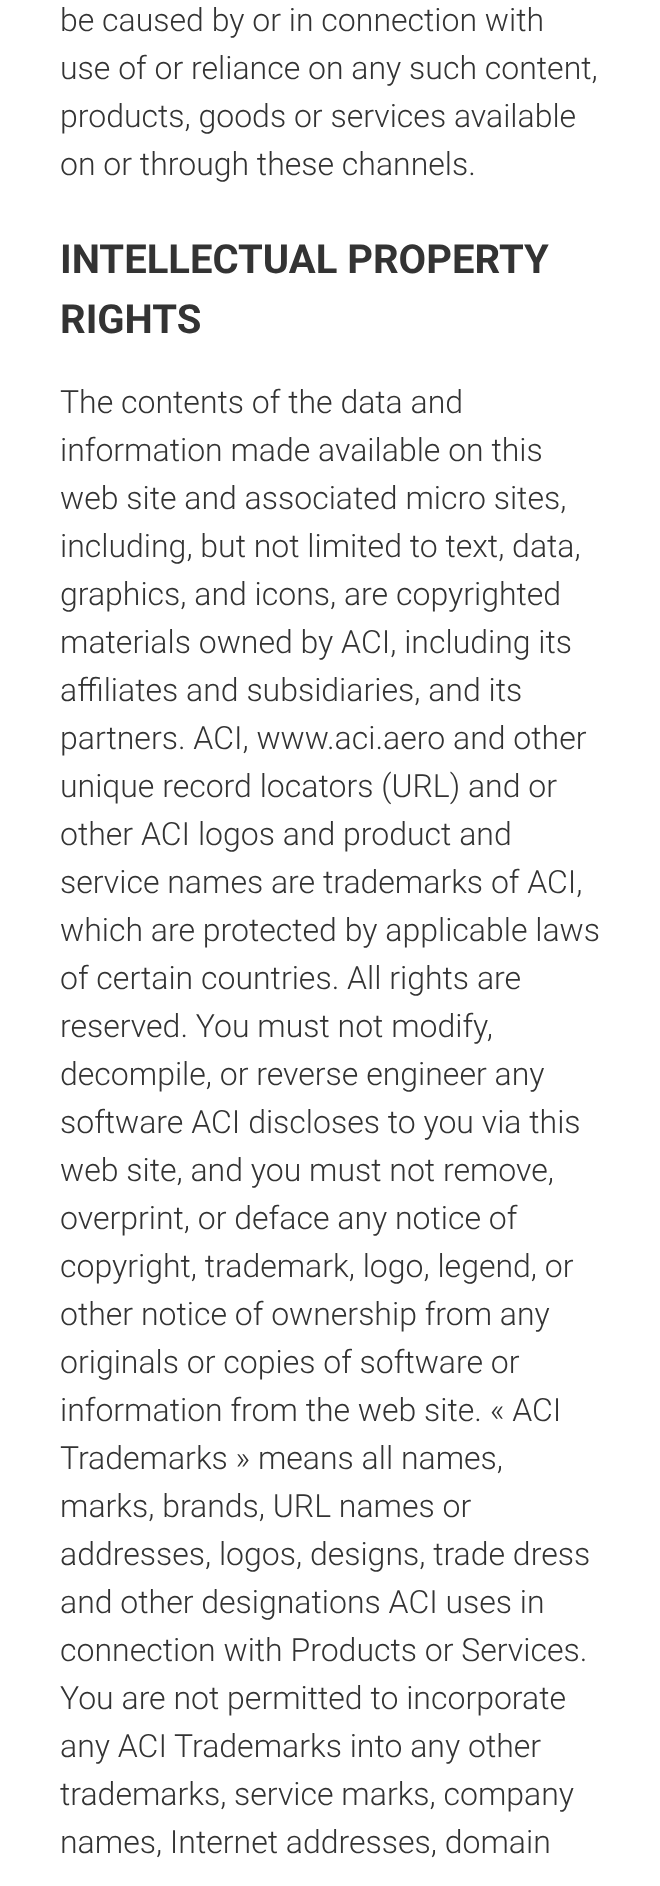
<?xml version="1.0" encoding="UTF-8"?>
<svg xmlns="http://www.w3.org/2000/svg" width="660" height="1886">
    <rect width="100%" height="100%" fill="#FFFFFF"/>
    <text font-family="Roboto" font-size="32" font-weight="300" fill="#333333">
        <tspan x="60" y="31">be caused by or in connection with</tspan>
        <tspan x="60" y="79">use of or reliance on any such content,</tspan>
        <tspan x="60" y="127">products, goods or services available</tspan>
        <tspan x="60" y="175">on or through these channels.</tspan>
    </text>
    <text font-family="Roboto" font-size="40" font-weight="700" fill="#333333">
        <tspan x="60" y="273">INTELLECTUAL PROPERTY</tspan>
        <tspan x="60" y="333">RIGHTS</tspan>
    </text>
    <text font-family="Roboto" font-size="32" font-weight="300" fill="#333333">
        <tspan x="60" y="413">The contents of the data and</tspan>
        <tspan x="60" y="461">information made available on this</tspan>
        <tspan x="60" y="509">web site and associated micro sites,</tspan>
        <tspan x="60" y="557">including, but not limited to text, data,</tspan>
        <tspan x="60" y="605">graphics, and icons, are copyrighted</tspan>
        <tspan x="60" y="653">materials owned by ACI, including its</tspan>
        <tspan x="60" y="701">affiliates and subsidiaries, and its</tspan>
        <tspan x="60" y="749">partners. ACI, www.aci.aero and other</tspan>
        <tspan x="60" y="797">unique record locators (URL) and or</tspan>
        <tspan x="60" y="845">other ACI logos and product and</tspan>
        <tspan x="60" y="893">service names are trademarks of ACI,</tspan>
        <tspan x="60" y="941">which are protected by applicable laws</tspan>
        <tspan x="60" y="989">of certain countries. All rights are</tspan>
        <tspan x="60" y="1037">reserved. You must not modify,</tspan>
        <tspan x="60" y="1085">decompile, or reverse engineer any</tspan>
        <tspan x="60" y="1133">software ACI discloses to you via this</tspan>
        <tspan x="60" y="1181">web site, and you must not remove,</tspan>
        <tspan x="60" y="1229">overprint, or deface any notice of</tspan>
        <tspan x="60" y="1277">copyright, trademark, logo, legend, or</tspan>
        <tspan x="60" y="1325">other notice of ownership from any</tspan>
        <tspan x="60" y="1373">originals or copies of software or</tspan>
        <tspan x="60" y="1421">information from the web site. « ACI</tspan>
        <tspan x="60" y="1469">Trademarks » means all names,</tspan>
        <tspan x="60" y="1517">marks, brands, URL names or</tspan>
        <tspan x="60" y="1565">addresses, logos, designs, trade dress</tspan>
        <tspan x="60" y="1613">and other designations ACI uses in</tspan>
        <tspan x="60" y="1661">connection with Products or Services.</tspan>
        <tspan x="60" y="1709">You are not permitted to incorporate</tspan>
        <tspan x="60" y="1757">any ACI Trademarks into any other</tspan>
        <tspan x="60" y="1805">trademarks, service marks, company</tspan>
        <tspan x="60" y="1853">names, Internet addresses, domain</tspan>
    </text>
</svg>
